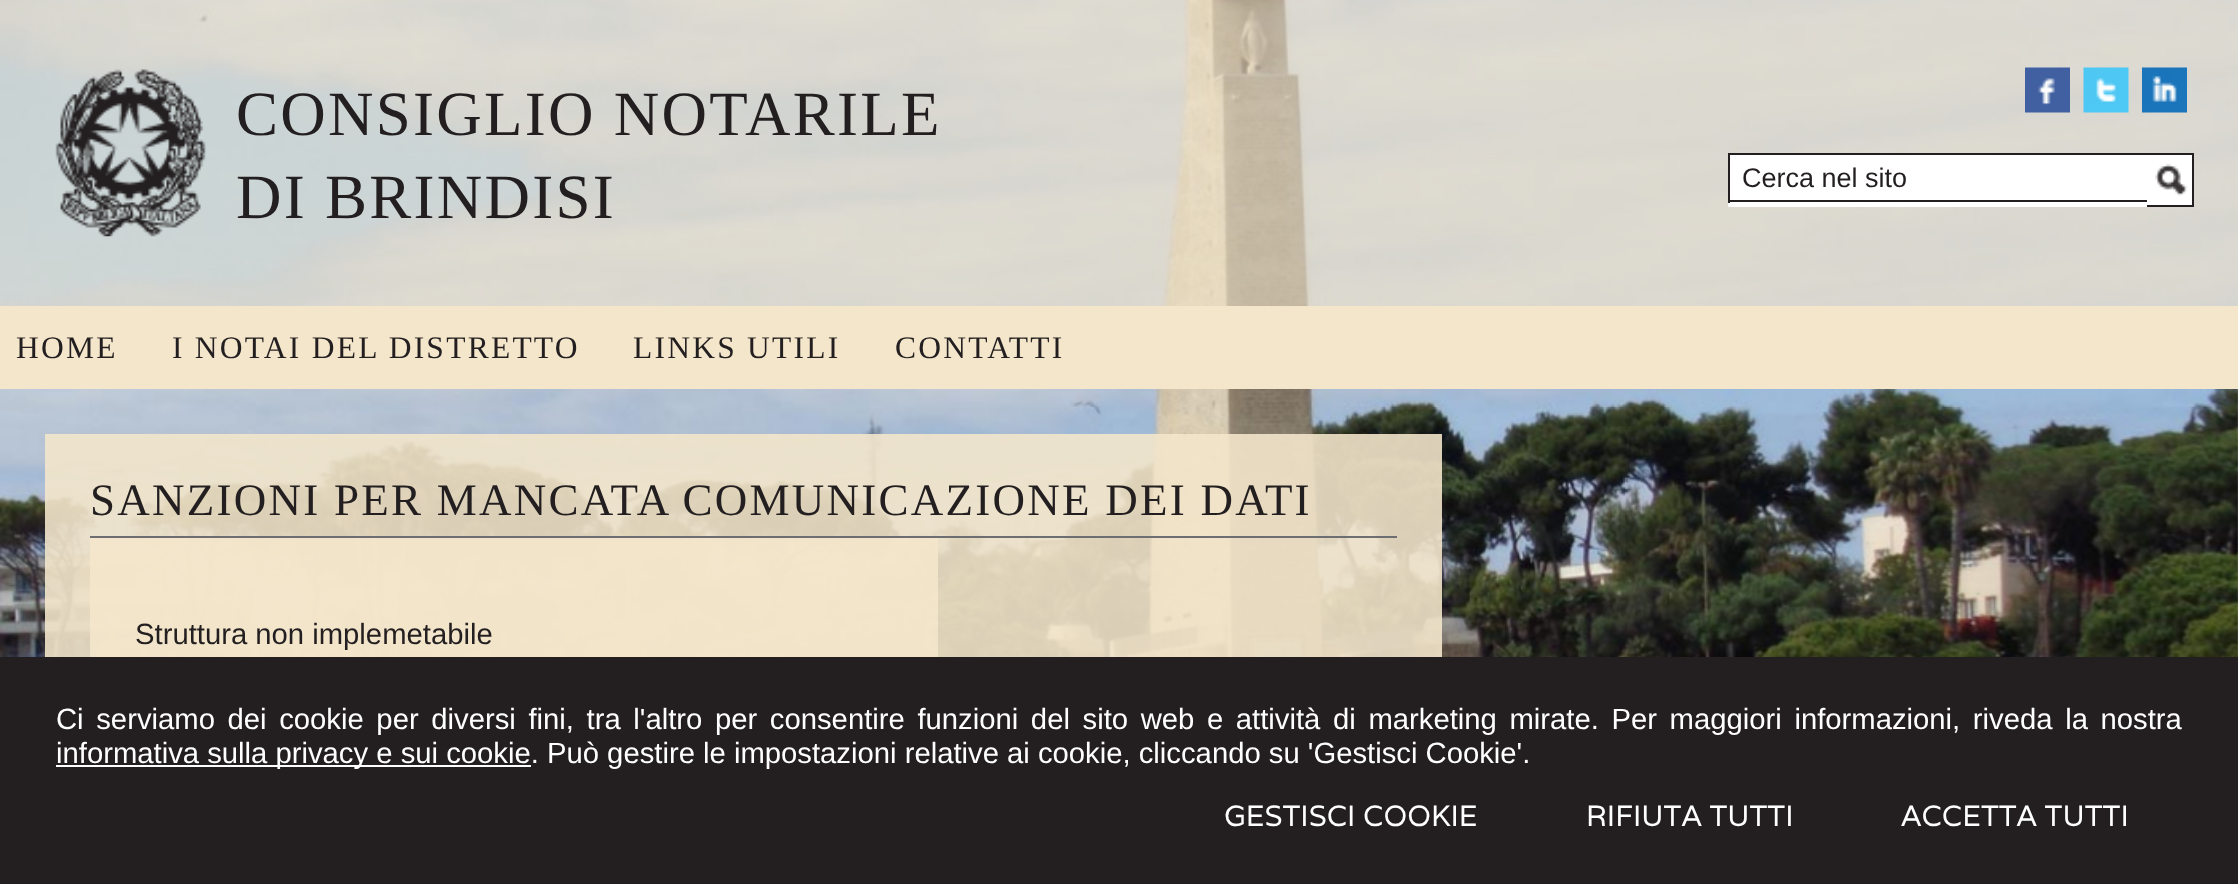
<?xml version="1.0" encoding="UTF-8"?>
<svg xmlns="http://www.w3.org/2000/svg" width="2238" height="884">
    <rect width="100%" height="100%" fill="#FFFFFF"/>
    <image x="0" y="0" width="2238" height="657" href="img_01.png"/>
    <rect x="0" y="0" width="2238" height="306" fill="#F4E6CB" fill-opacity="0.6"/>
    <image x="55" y="69" width="151" height="168" href="img_02.png"/>
    <text font-family="Liberation Serif" font-size="63" letter-spacing="2.25" fill="#231F20">
        <tspan x="236" y="135">CONSIGLIO NOTARILE</tspan>
        <tspan x="236" y="218">DI BRINDISI</tspan>
    </text>
    <image x="2025" y="67" width="45" height="46" href="img_03.png"/>
    <image x="2083" y="67" width="46" height="46" href="img_04.png"/>
    <image x="2142" y="67" width="45" height="46" href="img_05.png"/>
    <rect x="1728" y="155" width="464" height="52" fill="#FFFFFF"/>
    <rect x="1728" y="153" width="466" height="2" fill="#231F20"/>
    <rect x="1728" y="200" width="419" height="2" fill="#231F20"/>
    <rect x="1728" y="153" width="2" height="50" fill="#231F20"/>
    <text x="1742" y="187" font-family="Liberation Sans" font-size="27" fill="#231F20">Cerca nel sito</text>
    <image x="2155" y="163" width="33" height="33" href="img_06.png"/>
    <rect x="2192" y="153" width="2" height="54" fill="#231F20"/>
    <rect x="2147" y="205" width="47" height="2" fill="#231F20"/>
    <rect x="0" y="306" width="2238" height="83" fill="#F4E6CB"/>
    <text x="16" y="358" font-family="Liberation Serif" font-size="31.5" letter-spacing="2.25" fill="#231F20">HOME</text>
    <text x="172" y="358" font-family="Liberation Serif" font-size="31.5" letter-spacing="2.25" fill="#231F20">I NOTAI DEL DISTRETTO</text>
    <text x="633" y="358" font-family="Liberation Serif" font-size="31.5" letter-spacing="2.25" fill="#231F20">LINKS UTILI</text>
    <text x="895" y="358" font-family="Liberation Serif" font-size="31.5" letter-spacing="2.25" fill="#231F20">CONTATTI</text>
    <rect x="45" y="434" width="1397" height="223" fill="#F4E6CB" fill-opacity="0.89"/>
    <rect x="90" y="536" width="1307" height="2" fill="#6D6E71"/>
    <text x="90" y="515" font-family="Liberation Serif" font-size="45" letter-spacing="2.25" fill="#231F20">SANZIONI PER MANCATA COMUNICAZIONE DEI DATI</text>
    <rect x="90" y="538" width="848" height="119" fill="#F4E6CB" fill-opacity="0.89"/>
    <text x="135" y="644" font-family="Liberation Sans" font-size="29.25" fill="#231F20">Struttura non implemetabile</text>
    <rect x="0" y="657" width="2238" height="227" fill="#231F20"/>
    <text x="56" y="729" word-spacing="4.5" font-family="Liberation Sans" font-size="29.25" fill="#FFFFFF">Ci serviamo dei cookie per diversi fini, tra l'altro per consentire funzioni del sito web e attività di marketing mirate. Per maggiori informazioni, riveda la nostra</text>
    <rect x="56" y="765" width="475" height="2" fill="#FFFFFF"/>
    <text x="56" y="763" font-family="Liberation Sans" font-size="29.25" fill="#FFFFFF">informativa sulla privacy e sui cookie. Può gestire le impostazioni relative ai cookie, cliccando su 'Gestisci Cookie'.</text>
    <text x="1224" y="826" font-family="Varela" font-size="29.25" fill="#FFFFFF">GESTISCI COOKIE</text>
    <text x="1586" y="826" font-family="Varela" font-size="29.25" fill="#FFFFFF">RIFIUTA TUTTI</text>
    <text x="1901" y="826" font-family="Varela" font-size="29.25" fill="#FFFFFF">ACCETTA TUTTI</text>
</svg>
